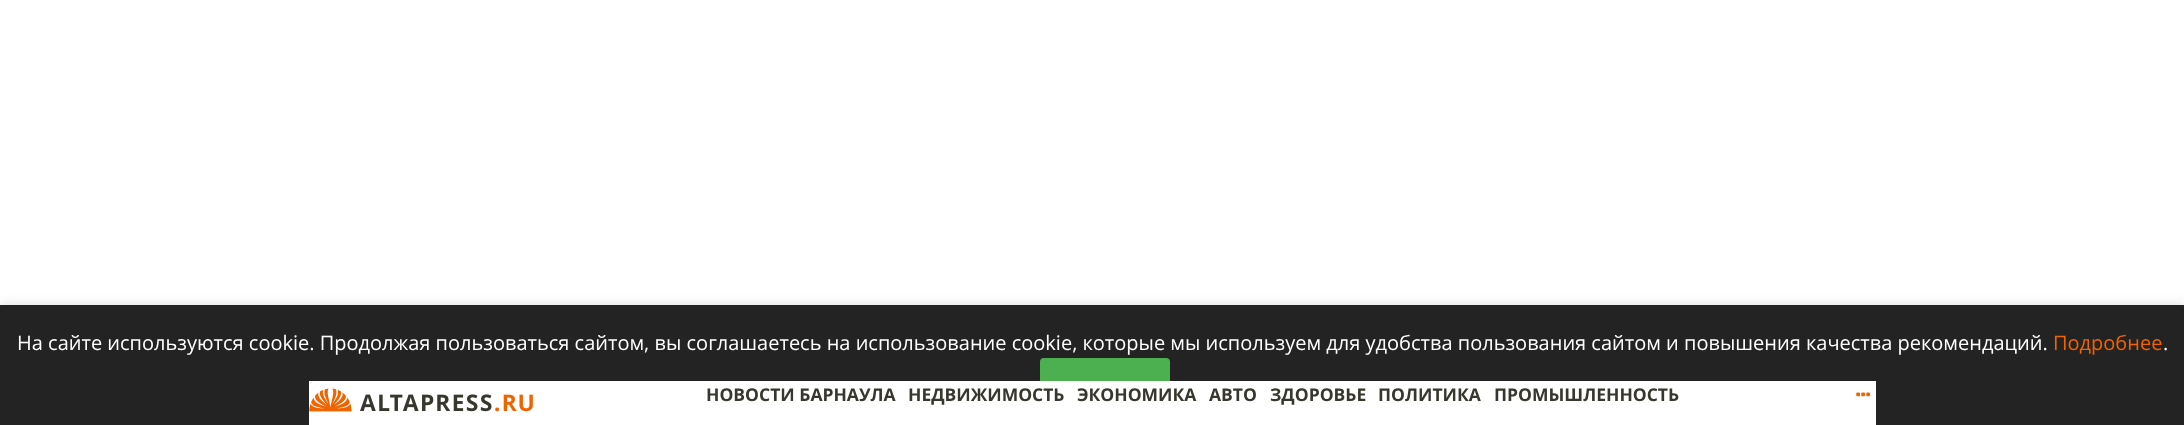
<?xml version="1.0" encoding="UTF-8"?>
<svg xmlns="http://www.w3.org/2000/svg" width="2184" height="425">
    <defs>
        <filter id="blur1" x="-50%" y="-200%" width="200%" height="500%"><feGaussianBlur stdDeviation="5"/></filter>
    </defs>
    <rect width="100%" height="100%" fill="#FFFFFF"/>
    <rect x="0" y="303" width="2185" height="120" fill="#000000" fill-opacity="0.1" filter="url(#blur1)"/>
    <rect x="0" y="305" width="2184" height="120" fill="#232323"/>
    <text x="17" y="350" font-family="Open Sans" font-size="20" fill="#FFFFFF">На сайте используются cookie. Продолжая пользоваться сайтом, вы соглашаетесь на использование cookie, которые мы используем для удобства пользования сайтом и повышения качества рекомендаций.</text>
    <text x="2053" y="350" font-family="Open Sans" font-size="20" fill="#F06400">Подробнее</text>
    <text x="2163" y="350" font-family="Open Sans" font-size="20" fill="#FFFFFF">.</text>
    <rect x="1040" y="358" width="130" height="45" rx="4" fill="#4CAF50"/>
    <rect x="309" y="381" width="1567" height="44" fill="#FFFFFF"/>
    <image x="309" y="388" width="224" height="24" href="img_01.png"/>
    <text x="706" y="401" font-family="Open Sans" font-size="17.5" font-weight="700" fill="#37372D">НОВОСТИ БАРНАУЛА</text>
    <text x="908" y="401" font-family="Open Sans" font-size="17.5" font-weight="700" fill="#37372D">НЕДВИЖИМОСТЬ</text>
    <text x="1077" y="401" font-family="Open Sans" font-size="17.5" font-weight="700" fill="#37372D">ЭКОНОМИКА</text>
    <text x="1209" y="401" font-family="Open Sans" font-size="17.5" font-weight="700" fill="#37372D">АВТО</text>
    <text x="1270" y="401" font-family="Open Sans" font-size="17.5" font-weight="700" fill="#37372D">ЗДОРОВЬЕ</text>
    <text x="1378" y="401" font-family="Open Sans" font-size="17.5" font-weight="700" fill="#37372D">ПОЛИТИКА</text>
    <text x="1494" y="401" font-family="Open Sans" font-size="17.5" font-weight="700" fill="#37372D">ПРОМЫШЛЕННОСТЬ</text>
    <image x="1856" y="392" width="14" height="5" href="img_02.png"/>
</svg>
